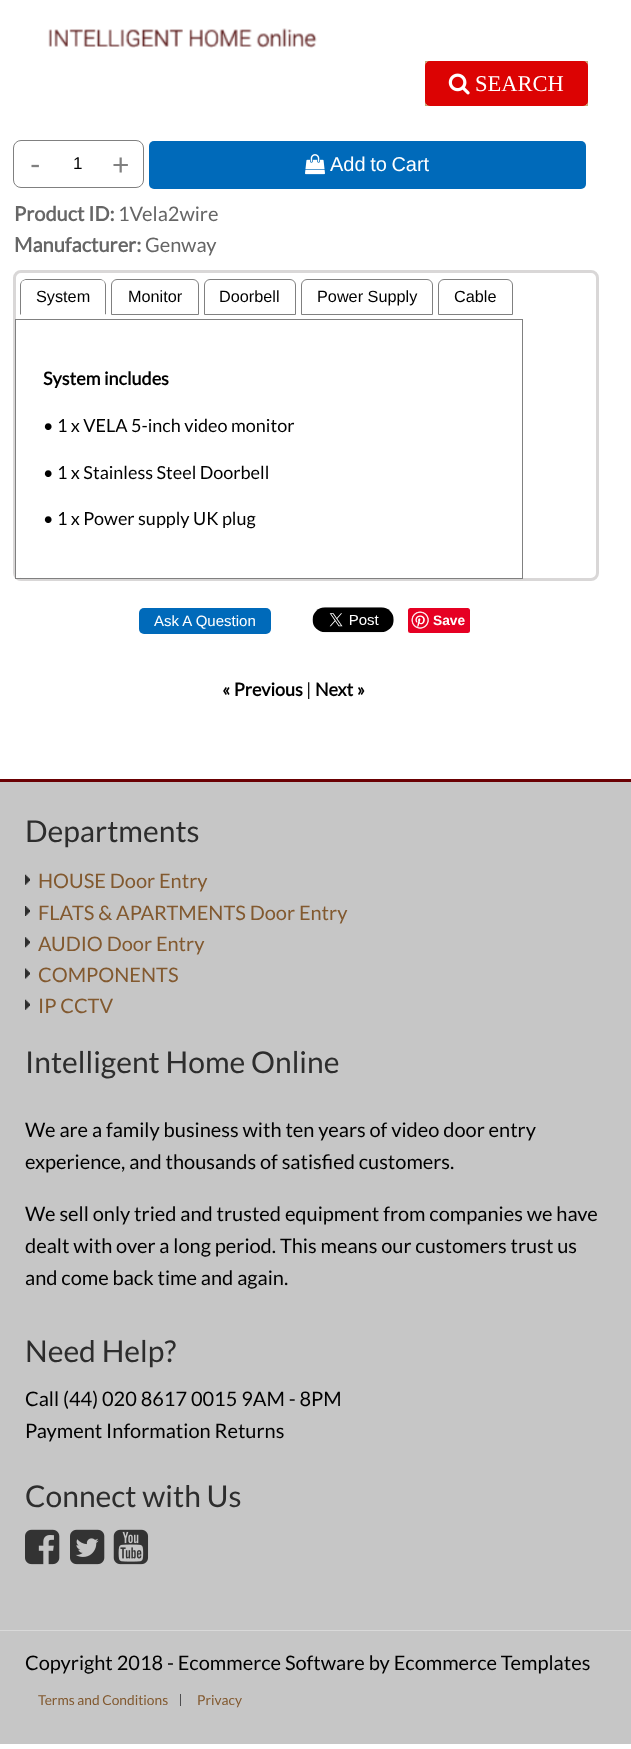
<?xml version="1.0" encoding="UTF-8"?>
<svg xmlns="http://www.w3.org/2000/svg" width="631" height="1749">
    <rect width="100%" height="100%" fill="#FFFFFF"/>
    <image x="48" y="28" width="269" height="20" href="img_01.png"/>
    <rect x="425.5" y="61.5" width="162" height="44" fill="none" stroke="#C4A973"/>
    <rect x="425" y="61" width="163" height="45" rx="5" fill="#DC0303"/>
    <image x="448" y="73" width="22" height="22" href="img_02.png"/>
    <text x="475" y="91" font-family="Liberation Serif" font-size="22.5" fill="#FFFFFF">SEARCH</text>
    <rect x="13.5" y="140.5" width="130" height="47" rx="7.5" fill="none" stroke="#808080"/>
    <text x="30" y="175" font-family="Lato" font-size="30" fill="#808080">-</text>
    <text x="73" y="169" font-family="Liberation Sans" font-size="17" fill="#000000">1</text>
    <text x="112" y="175" font-family="Lato" font-size="30" fill="#808080">+</text>
    <rect x="149" y="141" width="437" height="48" rx="5" fill="#006ABA"/>
    <image x="305" y="154" width="20" height="21" href="img_03.png"/>
    <text x="330" y="171" word-spacing="-1" font-family="Liberation Sans" font-size="20" fill="#FFFFFF">Add to Cart</text>
    <text x="14" y="221" font-family="Lato" font-size="20" font-weight="700" fill="#666666">Product ID:</text>
    <text x="118" y="221" font-family="Lato" font-size="20" fill="#666666">1Vela2wire</text>
    <text x="14" y="252" font-family="Lato" font-size="20" font-weight="700" fill="#666666">Manufacturer:</text>
    <text x="145" y="252" font-family="Lato" font-size="20" fill="#666666">Genway</text>
    <rect x="14.5" y="271.5" width="583" height="308" rx="6.5" fill="none" stroke="#D9D7D7" stroke-width="3"/>
    <path d="M 26 279 C 25 279 23 280 22 281 H 23 L 25 280 H 101 L 104 281 C 103 280 102 279 100 279 Z" fill="#808080"/>
    <path d="M 106 315 V 285 C 106 283.5 105 282 104 281 L 103.5 281.5 C 104.5 282 105 283.5 105 285 V 314 Z" fill="#808080"/>
    <path d="M 106 315 L 105 314 H 21 L 20 315 Z" fill="#FFFFFF"/>
    <path d="M 20 315 L 21 314 V 285 C 21 283.5 21.5 282 22.5 281.5 L 22 281 C 21 282 20 283.5 20 285 Z" fill="#808080"/>
    <text x="36" y="302" font-family="Liberation Sans" font-size="16.25" fill="#000000">System</text>
    <path d="M 117 279.5 H 193 C 196 279.5 198.5 282 198.5 285 V 314.5 H 111.5 V 285 C 111.5 282 114 279.5 117 279.5 Z" fill="none" stroke="#808080"/>
    <text x="128" y="302" font-family="Liberation Sans" font-size="16.25" fill="#000000">Monitor</text>
    <path d="M 210 279.5 H 290 C 293 279.5 295.5 282 295.5 285 V 314.5 H 204.5 V 285 C 204.5 282 207 279.5 210 279.5 Z" fill="none" stroke="#808080"/>
    <text x="219" y="302" font-family="Liberation Sans" font-size="16.25" fill="#000000">Doorbell</text>
    <path d="M 307 279.5 H 427 C 430 279.5 432.5 282 432.5 285 V 314.5 H 301.5 V 285 C 301.5 282 304 279.5 307 279.5 Z" fill="none" stroke="#808080"/>
    <text x="317" y="302" font-family="Liberation Sans" font-size="16.25" fill="#000000">Power Supply</text>
    <path d="M 444 279.5 H 507 C 510 279.5 512.5 282 512.5 285 V 314.5 H 438.5 V 285 C 438.5 282 441 279.5 444 279.5 Z" fill="none" stroke="#808080"/>
    <text x="454" y="302" font-family="Liberation Sans" font-size="16.25" fill="#000000">Cable</text>
    <rect x="16" y="574" width="4" height="4" fill="#FFFFFF"/>
    <rect x="15.5" y="319.5" width="507" height="259" fill="none" stroke="#808080"/>
    <text x="43" y="385" font-family="Lato" font-size="18" font-weight="700" fill="#000000">System includes</text>
    <text x="43" y="432" font-family="Lato" font-size="18" fill="#000000">• 1 x VELA 5-inch video monitor</text>
    <text x="43" y="479" font-family="Lato" font-size="18" fill="#000000">• 1 x Stainless Steel Doorbell</text>
    <text x="43" y="525" font-family="Lato" font-size="18" fill="#000000">• 1 x Power supply UK plug</text>
    <rect x="139" y="608" width="132" height="26" rx="5" fill="#006ABA"/>
    <text x="154" y="626" font-family="Liberation Sans" font-size="15" fill="#FFFFFF">Ask A Question</text>
    <image x="312" y="607" width="82" height="26" href="img_04.png"/>
    <rect x="408" y="608" width="62" height="25" rx="2.5" fill="#E60023"/>
    <image x="411" y="611" width="18" height="18" href="img_05.png"/>
    <text x="433" y="625" font-family="Liberation Sans" font-size="13.75" font-weight="700" fill="#FFFFFF">Save</text>
    <text x="222" y="696" font-family="Lato" font-size="18" font-weight="700" fill="#000000">« Previous</text>
    <text x="306" y="696" font-family="Lato" font-size="18" fill="#000000">|</text>
    <text x="315" y="696" font-family="Lato" font-size="18" font-weight="700" fill="#000000">Next »</text>
    <rect x="0" y="782" width="631" height="962" fill="#C6C6C6"/>
    <rect x="0" y="779" width="631" height="3" fill="#6A0003"/>
    <text x="25" y="842" font-family="Lato" font-size="30" fill="#2D2D2D">Departments</text>
    <image x="25" y="874" width="5" height="11" href="img_06.png"/>
    <text x="38" y="888" font-family="Lato" font-size="20" fill="#82592F">HOUSE Door Entry</text>
    <image x="25" y="906" width="5" height="10" href="img_07.png"/>
    <text x="38" y="920" font-family="Lato" font-size="20" fill="#82592F">FLATS &amp; APARTMENTS Door Entry</text>
    <image x="25" y="937" width="5" height="11" href="img_08.png"/>
    <text x="38" y="951" font-family="Lato" font-size="20" fill="#82592F">AUDIO Door Entry</text>
    <image x="25" y="968" width="5" height="11" href="img_09.png"/>
    <text x="38" y="982" font-family="Lato" font-size="20" fill="#82592F">COMPONENTS</text>
    <image x="25" y="999" width="5" height="11" href="img_06.png"/>
    <text x="38" y="1013" font-family="Lato" font-size="20" fill="#82592F">IP CCTV</text>
    <text x="25" y="1073" font-family="Lato" font-size="30" fill="#2D2D2D">Intelligent Home Online</text>
    <text font-family="Lato" font-size="20" fill="#000000">
        <tspan x="25" y="1137">We are a family business with ten years of video door entry</tspan>
        <tspan x="25" y="1169">experience, and thousands of satisfied customers.</tspan>
    </text>
    <text font-family="Lato" font-size="20" fill="#000000">
        <tspan x="25" y="1221">We sell only tried and trusted equipment from companies we have</tspan>
        <tspan x="25" y="1253">dealt with over a long period. This means our customers trust us</tspan>
        <tspan x="25" y="1285">and come back time and again.</tspan>
    </text>
    <text x="25" y="1362" font-family="Lato" font-size="30" fill="#2D2D2D">Need Help?</text>
    <text font-family="Lato" font-size="20" fill="#000000">
        <tspan x="25" y="1406">Call (44) 020 8617 0015 9AM - 8PM</tspan>
        <tspan x="25" y="1438">Payment Information Returns</tspan>
    </text>
    <text x="25" y="1507" font-family="Lato" font-size="30" fill="#2D2D2D">Connect with Us</text>
    <image x="25" y="1529" width="35" height="36" href="img_10.png"/>
    <image x="70" y="1529" width="35" height="36" href="img_11.png"/>
    <image x="113" y="1529" width="36" height="36" href="img_12.png"/>
    <rect x="0" y="1630" width="631" height="1" fill="#D9D9D9"/>
    <text x="25" y="1670" font-family="Lato" font-size="20" fill="#000000">Copyright 2018 - Ecommerce Software by Ecommerce Templates</text>
    <rect x="180" y="1694" width="1" height="12" fill="#4D4D4F"/>
    <text x="38" y="1705" font-family="Lato" font-size="13.75" fill="#82592F">Terms and Conditions</text>
    <text x="197" y="1705" font-family="Lato" font-size="13.75" fill="#82592F">Privacy</text>
</svg>
